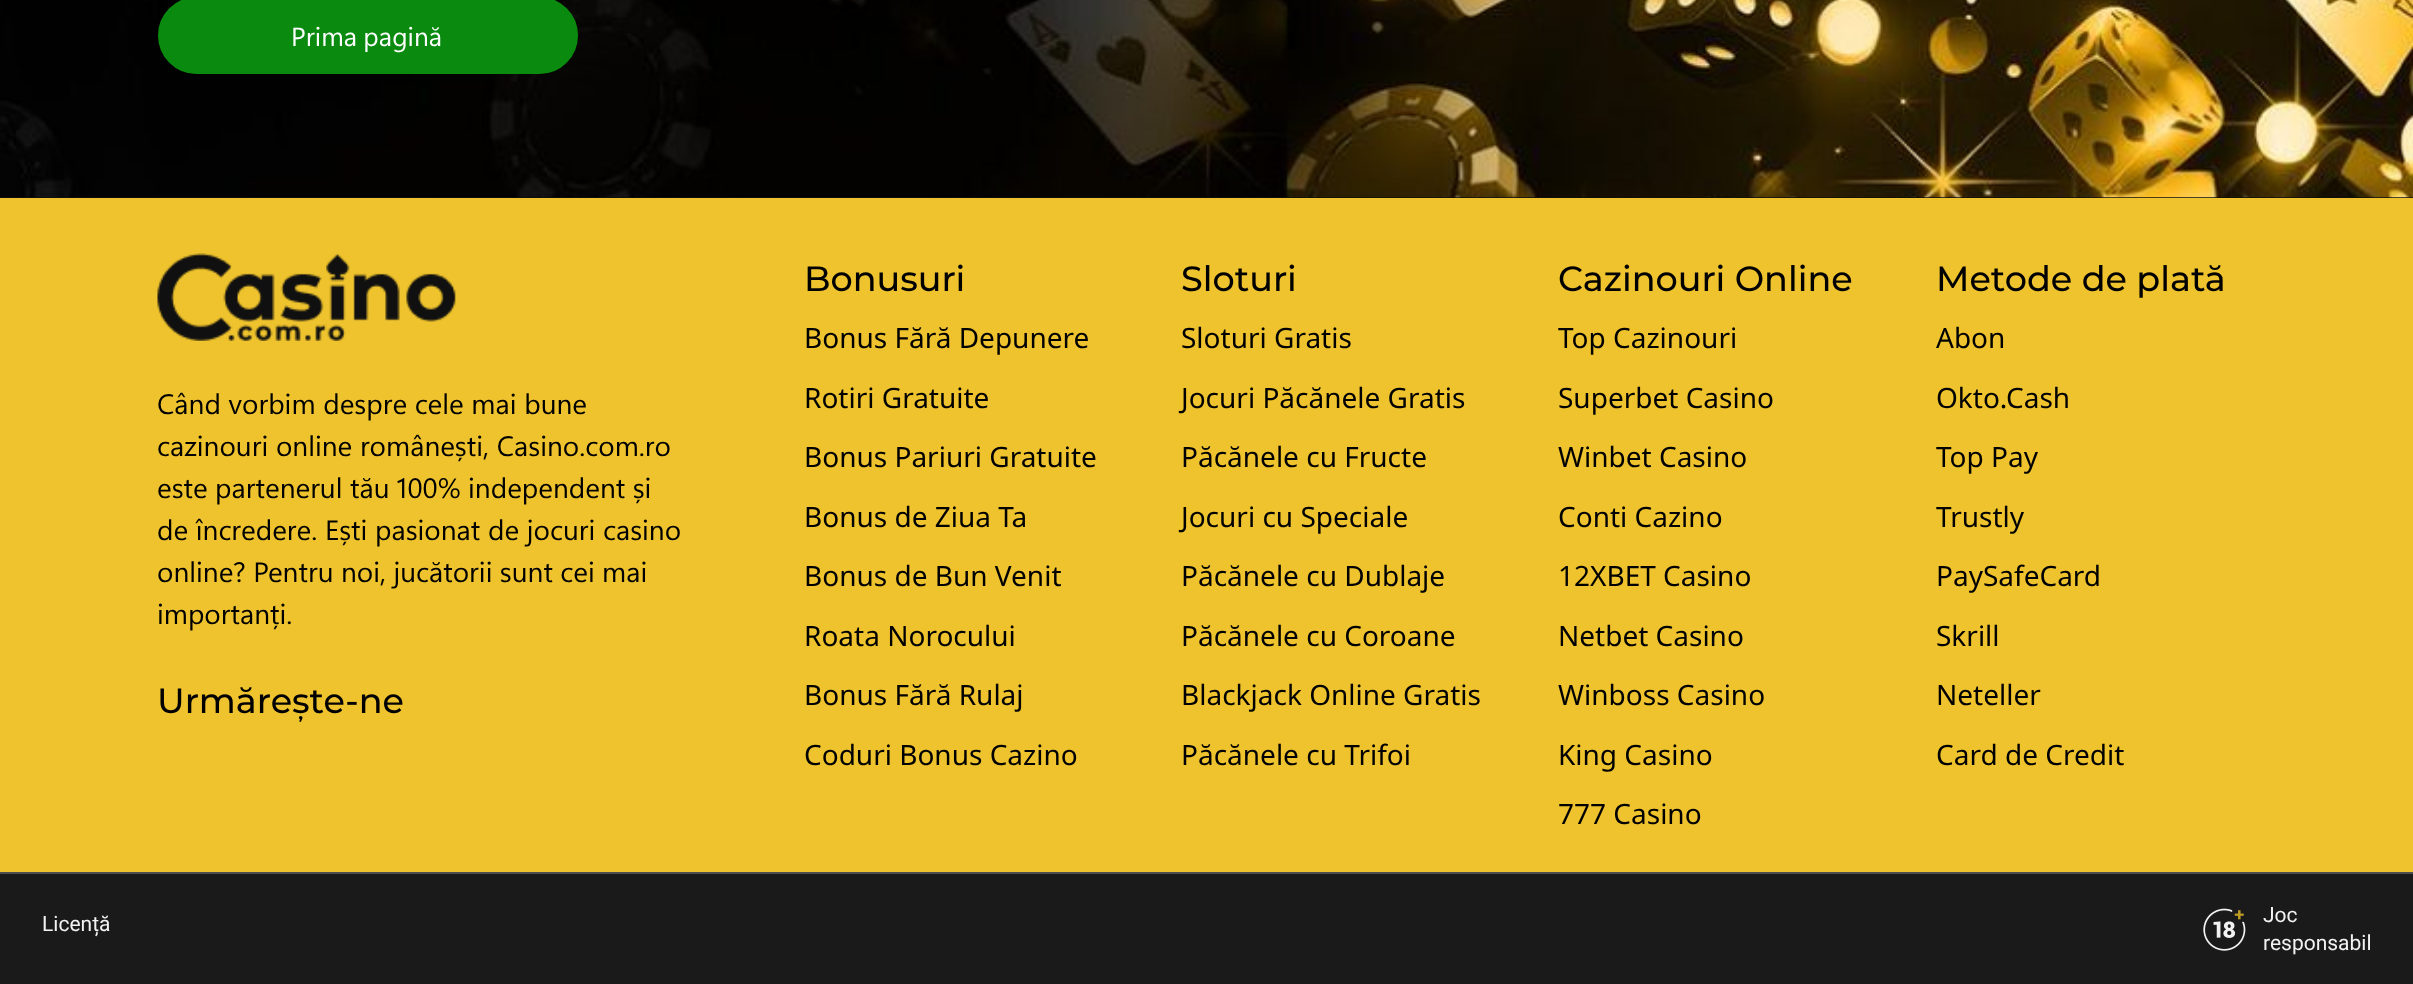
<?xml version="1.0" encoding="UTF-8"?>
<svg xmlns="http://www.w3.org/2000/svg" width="2413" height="984">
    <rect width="100%" height="100%" fill="#101010"/>
    <image x="0" y="0" width="2413" height="198" href="img_01.png"/>
    <rect x="160" y="-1" width="416" height="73" rx="36.5" fill="#0A8A0F" stroke="#0A8A0F" stroke-width="4"/>
    <text x="291" y="46" word-spacing="-1" font-family="Segoe UI" font-size="26.25" fill="#FFFFFF">Prima pagină</text>
    <rect x="0" y="198" width="2413" height="674" fill="#EFC32D"/>
    <image x="157" y="253" width="299" height="88" href="img_02.png"/>
    <text font-family="Segoe UI" font-size="28" fill="#000000">
        <tspan x="157" y="414">Când vorbim despre cele mai bune</tspan>
        <tspan x="157" y="456">cazinouri online românești, Casino.com.ro</tspan>
        <tspan x="157" y="498" word-spacing="-0.25">este partenerul tău 100% independent și</tspan>
        <tspan x="157" y="540">de încredere. Ești pasionat de jocuri casino</tspan>
        <tspan x="157" y="582" word-spacing="-0.25">online? Pentru noi, jucătorii sunt cei mai</tspan>
        <tspan x="157" y="624">importanți.</tspan>
    </text>
    <text x="157" y="713" font-family="Montserrat" font-size="35" font-weight="500" fill="#000000">Urmărește-ne</text>
    <text x="804" y="291" font-family="Montserrat" font-size="35" font-weight="500" fill="#000000">Bonusuri</text>
    <text x="804" y="348" font-family="Noto Sans" font-size="28" fill="#000000">Bonus Fără Depunere</text>
    <text x="804" y="408" font-family="Noto Sans" font-size="28" fill="#000000">Rotiri Gratuite</text>
    <text x="804" y="467" font-family="Noto Sans" font-size="28" fill="#000000">Bonus Pariuri Gratuite</text>
    <text x="804" y="527" font-family="Noto Sans" font-size="28" fill="#000000">Bonus de Ziua Ta</text>
    <text x="804" y="586" font-family="Noto Sans" font-size="28" fill="#000000">Bonus de Bun Venit</text>
    <text x="804" y="646" font-family="Noto Sans" font-size="28" fill="#000000">Roata Norocului</text>
    <text x="804" y="705" font-family="Noto Sans" font-size="28" fill="#000000">Bonus Fără Rulaj</text>
    <text x="804" y="765" font-family="Noto Sans" font-size="28" fill="#000000">Coduri Bonus Cazino</text>
    <text x="1181" y="291" font-family="Montserrat" font-size="35" font-weight="500" fill="#000000">Sloturi</text>
    <text x="1181" y="348" font-family="Noto Sans" font-size="28" fill="#000000">Sloturi Gratis</text>
    <text x="1181" y="408" font-family="Noto Sans" font-size="28" fill="#000000">Jocuri Păcănele Gratis</text>
    <text x="1181" y="467" font-family="Noto Sans" font-size="28" fill="#000000">Păcănele cu Fructe</text>
    <text x="1181" y="527" font-family="Noto Sans" font-size="28" fill="#000000">Jocuri cu Speciale</text>
    <text x="1181" y="586" font-family="Noto Sans" font-size="28" fill="#000000">Păcănele cu Dublaje</text>
    <text x="1181" y="646" font-family="Noto Sans" font-size="28" fill="#000000">Păcănele cu Coroane</text>
    <text x="1181" y="705" font-family="Noto Sans" font-size="28" fill="#000000">Blackjack Online Gratis</text>
    <text x="1181" y="765" font-family="Noto Sans" font-size="28" fill="#000000">Păcănele cu Trifoi</text>
    <text x="1558" y="291" font-family="Montserrat" font-size="35" font-weight="500" fill="#000000">Cazinouri Online</text>
    <text x="1558" y="348" font-family="Noto Sans" font-size="28" fill="#000000">Top Cazinouri</text>
    <text x="1558" y="408" font-family="Noto Sans" font-size="28" fill="#000000">Superbet Casino</text>
    <text x="1558" y="467" font-family="Noto Sans" font-size="28" fill="#000000">Winbet Casino</text>
    <text x="1558" y="527" font-family="Noto Sans" font-size="28" fill="#000000">Conti Cazino</text>
    <text x="1558" y="586" font-family="Noto Sans" font-size="28" fill="#000000">12XBET Casino</text>
    <text x="1558" y="646" font-family="Noto Sans" font-size="28" fill="#000000">Netbet Casino</text>
    <text x="1558" y="705" font-family="Noto Sans" font-size="28" fill="#000000">Winboss Casino</text>
    <text x="1558" y="765" font-family="Noto Sans" font-size="28" fill="#000000">King Casino</text>
    <text x="1558" y="824" font-family="Noto Sans" font-size="28" fill="#000000">777 Casino</text>
    <text x="1936" y="291" font-family="Montserrat" font-size="35" font-weight="500" fill="#000000">Metode de plată</text>
    <text x="1936" y="348" font-family="Noto Sans" font-size="28" fill="#000000">Abon</text>
    <text x="1936" y="408" font-family="Noto Sans" font-size="28" fill="#000000">Okto.Cash</text>
    <text x="1936" y="467" font-family="Noto Sans" font-size="28" fill="#000000">Top Pay</text>
    <text x="1936" y="527" font-family="Noto Sans" font-size="28" fill="#000000">Trustly</text>
    <text x="1936" y="586" font-family="Noto Sans" font-size="28" fill="#000000">PaySafeCard</text>
    <text x="1936" y="646" font-family="Noto Sans" font-size="28" fill="#000000">Skrill</text>
    <text x="1936" y="705" font-family="Noto Sans" font-size="28" fill="#000000">Neteller</text>
    <text x="1936" y="765" font-family="Noto Sans" font-size="28" fill="#000000">Card de Credit</text>
    <rect x="0" y="874" width="2413" height="110" fill="#1A1A1A"/>
    <rect x="0" y="872" width="2413" height="2" fill="#4D4D4D"/>
    <text x="42" y="931" font-family="Roboto" font-size="21" fill="#F2F2F2">Licență</text>
    <image x="2203" y="908" width="43" height="43" href="img_03.png"/>
    <text font-family="Roboto" font-size="21" fill="#F2F2F2">
        <tspan x="2263" y="922">Joc</tspan>
        <tspan x="2263" y="950">responsabil</tspan>
    </text>
</svg>
